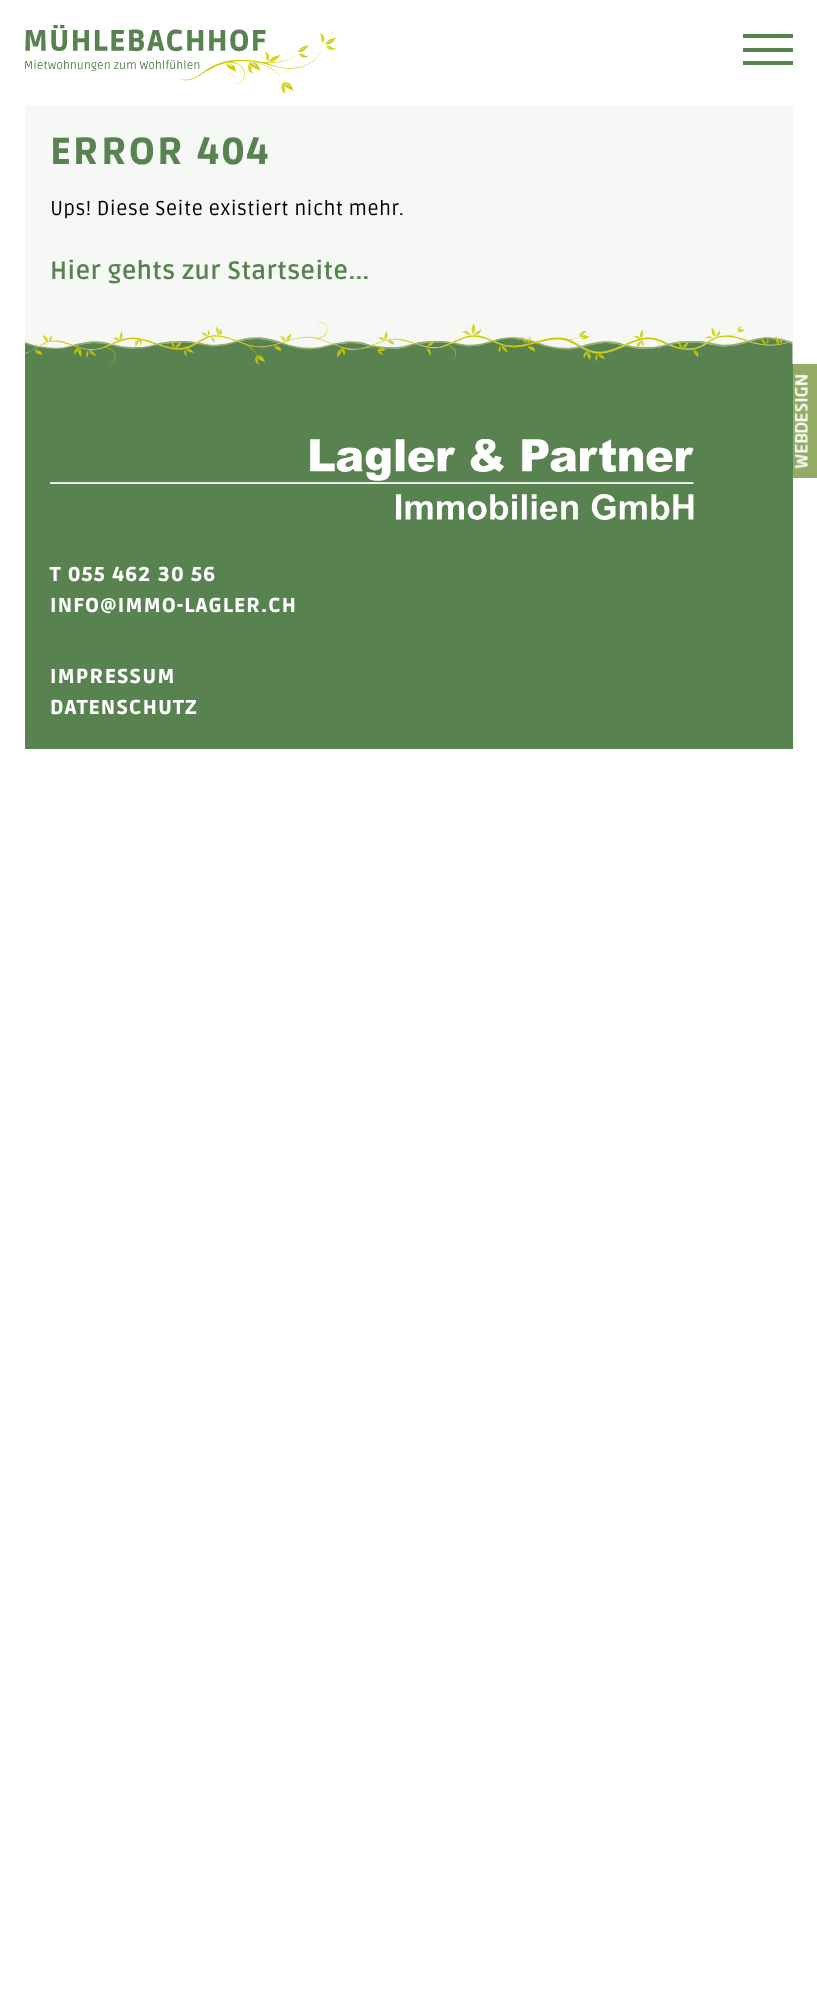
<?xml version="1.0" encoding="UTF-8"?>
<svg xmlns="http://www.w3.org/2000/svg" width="817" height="1994">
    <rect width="100%" height="100%" fill="#FFFFFF"/>
    <image x="25" y="25" width="312" height="69" href="img_01.png"/>
    <rect x="743" y="34" width="50" height="4" fill="#598251"/>
    <rect x="743" y="48" width="50" height="4" fill="#598251"/>
    <rect x="743" y="61" width="50" height="4" fill="#598251"/>
    <rect x="25" y="106" width="768" height="258" fill="#F6F8F6"/>
    <text x="50" y="164" font-family="Ruda" font-size="37.5" font-weight="900" letter-spacing="2.25" fill="#598251">ERROR 404</text>
    <text x="50" y="215" font-family="Ruda" font-size="20" letter-spacing="0.4" fill="#000000">Ups! Diese Seite existiert nicht mehr.</text>
    <text x="50" y="279" font-family="Ruda" font-size="25" font-weight="700" letter-spacing="0.4" fill="#598251">Hier gehts zur Startseite...</text>
    <rect x="793" y="364" width="24" height="114" fill="#94AB65"/>
    <image x="794" y="374" width="14" height="95" href="img_02.png"/>
    <rect x="25" y="364" width="768" height="385" fill="#598251"/>
    <image x="25" y="322" width="768" height="43" href="img_03.png"/>
    <image x="50" y="439" width="644" height="81" href="img_04.png"/>
    <text font-family="Ruda" font-size="20" font-weight="900" letter-spacing="1.25" fill="#FFFFFF">
        <tspan x="50" y="581">T 055 462 30 56</tspan>
        <tspan x="50" y="612">INFO@IMMO-LAGLER.CH</tspan>
    </text>
    <text font-family="Ruda" font-size="20" font-weight="900" letter-spacing="1.25" fill="#FFFFFF">
        <tspan x="50" y="683">IMPRESSUM</tspan>
        <tspan x="50" y="714">DATENSCHUTZ</tspan>
    </text>
</svg>
